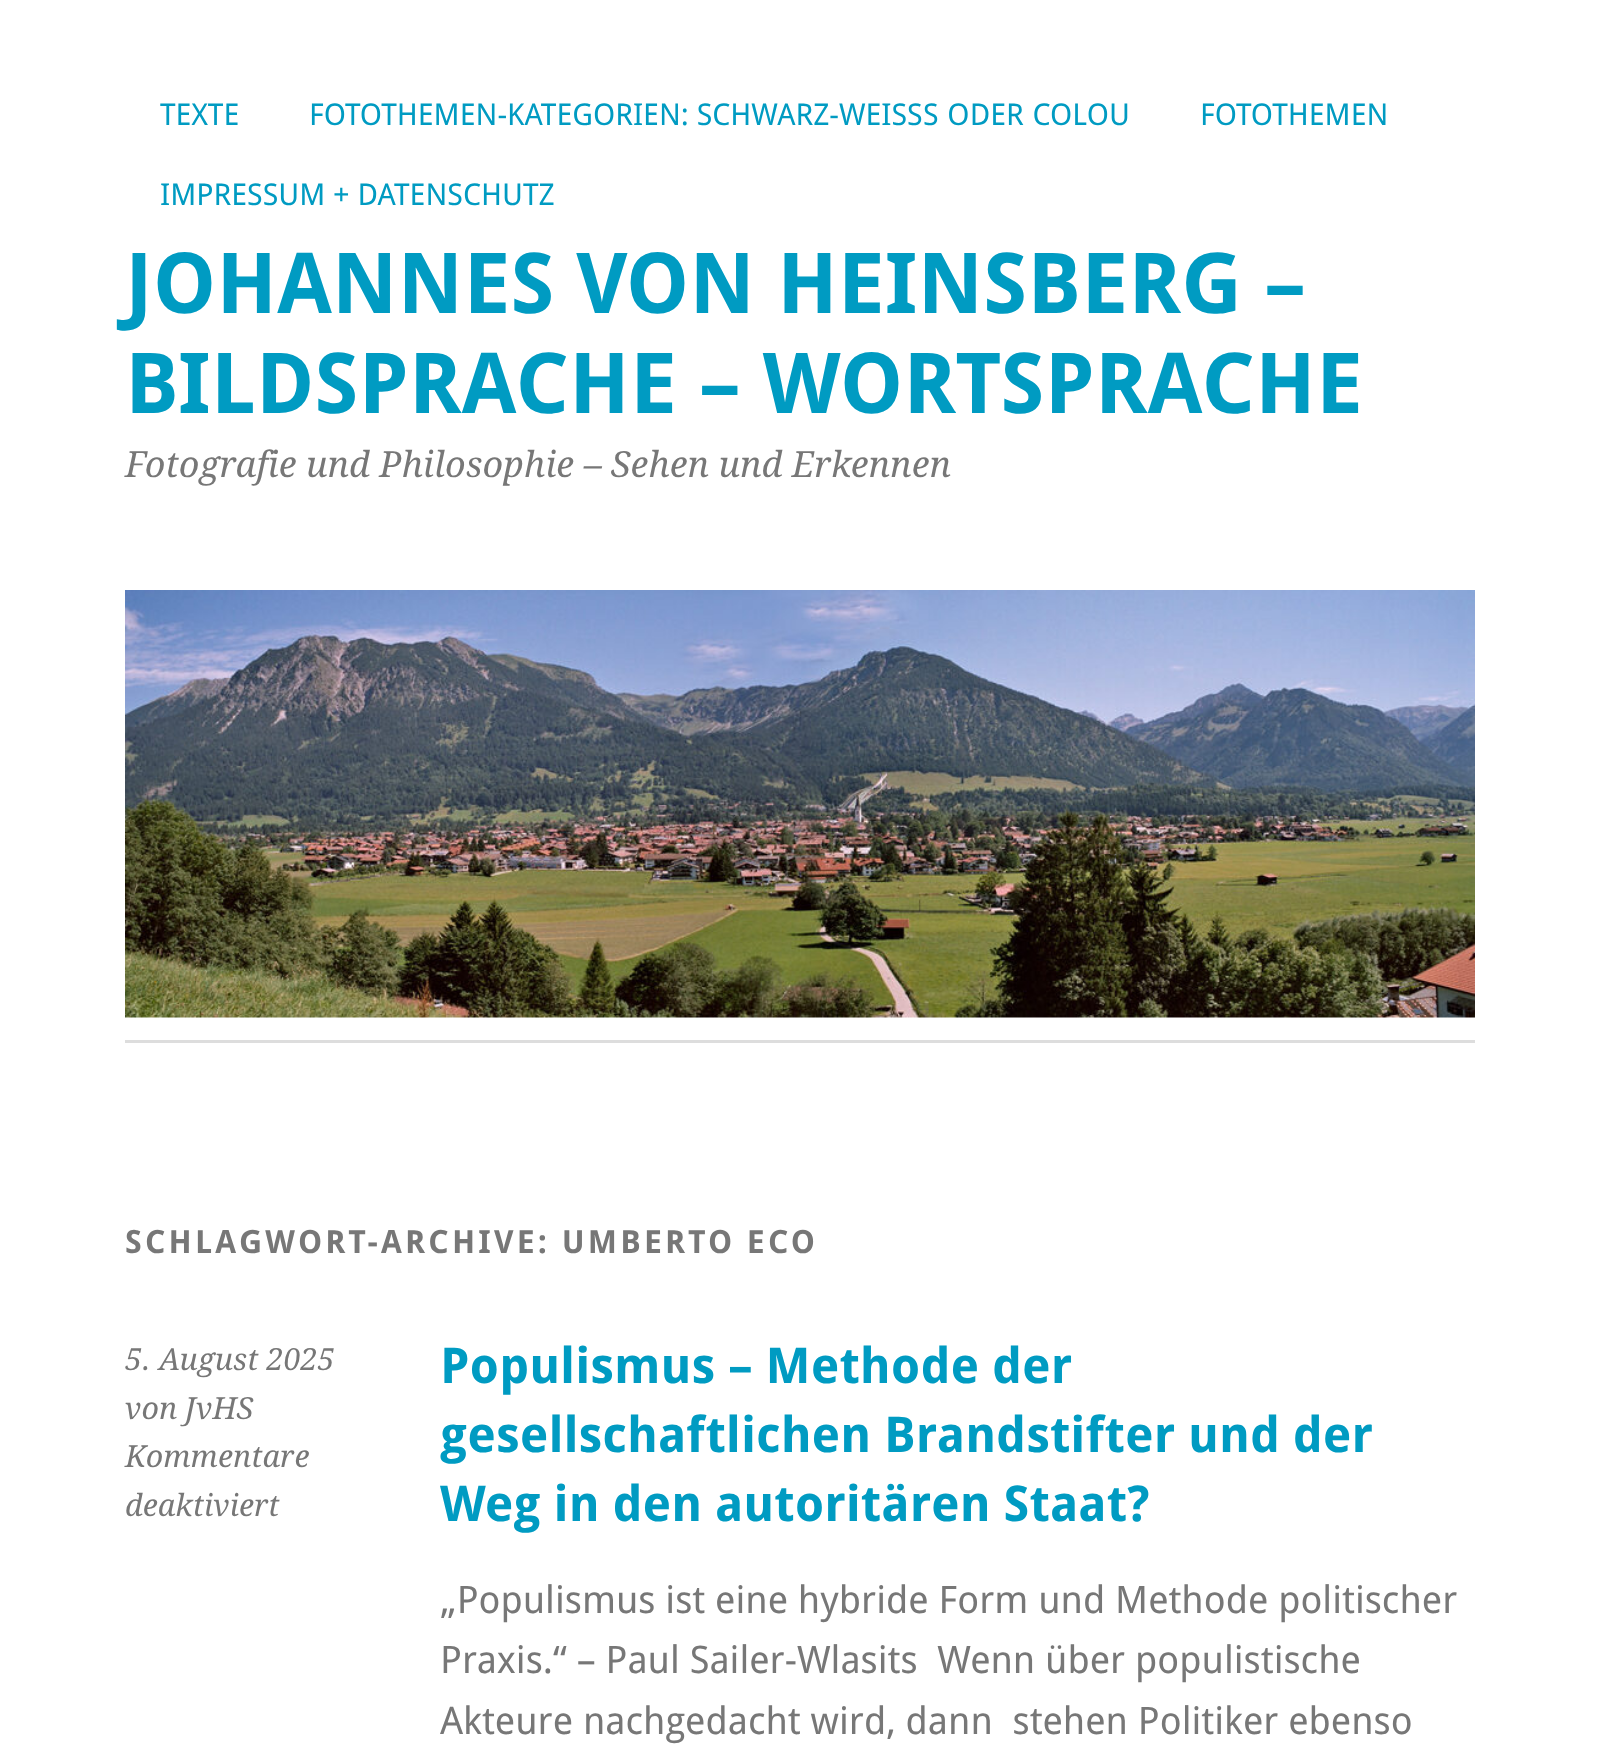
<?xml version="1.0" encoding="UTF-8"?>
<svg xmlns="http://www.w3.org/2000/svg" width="1599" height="1752">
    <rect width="100%" height="100%" fill="#FFFFFF"/>
    <text x="160" y="125" font-family="Droid Sans" font-size="30" fill="#009BC2">TEXTE</text>
    <text x="309" y="125" font-family="Droid Sans" font-size="30" fill="#009BC2">FOTOTHEMEN-KATEGORIEN: SCHWARZ-WEISS</text>
    <text x="923" y="125" word-spacing="1" font-family="Droid Sans" font-size="30" fill="#009BC2">S ODER COLOU</text>
    <text x="1200" y="125" font-family="Droid Sans" font-size="30" fill="#009BC2">FOTOTHEMEN</text>
    <text x="160" y="205" font-family="Droid Sans" font-size="30" fill="#009BC2">IMPRESSUM + DATENSCHUTZ</text>
    <text font-family="Droid Sans" font-size="84" font-weight="700" fill="#009BC2">
        <tspan x="125" y="313">JOHANNES VON HEINSBERG –</tspan>
        <tspan x="125" y="413">BILDSPRACHE – WORTSPRACHE</tspan>
    </text>
    <text x="125" y="477" font-family="Droid Serif" font-size="36" font-style="italic" fill="#777777">Fotografie und Philosophie – Sehen und Erkennen</text>
    <image x="125" y="590" width="1350" height="428" href="img_01.png"/>
    <rect x="125" y="1040" width="1350" height="3" fill="#DDDDDD"/>
    <text x="125" y="1253" font-family="Droid Sans" font-size="32" font-weight="700" letter-spacing="3.2" fill="#777777">SCHLAGWORT-ARCHIVE: UMBERTO ECO</text>
    <text font-family="Droid Serif" font-size="30.5" font-style="italic" fill="#777777">
        <tspan x="125" y="1370">5. August 2025</tspan>
        <tspan x="125" y="1419">von JvHS</tspan>
        <tspan x="125" y="1467">Kommentare</tspan>
        <tspan x="125" y="1516">deaktiviert</tspan>
    </text>
    <text font-family="Droid Sans" font-size="49.4" font-weight="700" fill="#009BC2">
        <tspan x="440" y="1383">Populismus – Methode der</tspan>
        <tspan x="440" y="1452">gesellschaftlichen Brandstifter und der</tspan>
        <tspan x="440" y="1521">Weg in den autoritären Staat?</tspan>
    </text>
    <text font-family="Droid Sans" font-size="38" fill="#777777" xml:space="preserve"><tspan x="440" y="1613">„Populismus ist eine hybride Form und Methode politischer</tspan><tspan x="440" y="1673">Praxis.“ – Paul Sailer-Wlasits  Wenn über populistische</tspan><tspan x="440" y="1734">Akteure nachgedacht wird, dann  stehen Politiker ebenso</tspan></text>
</svg>
